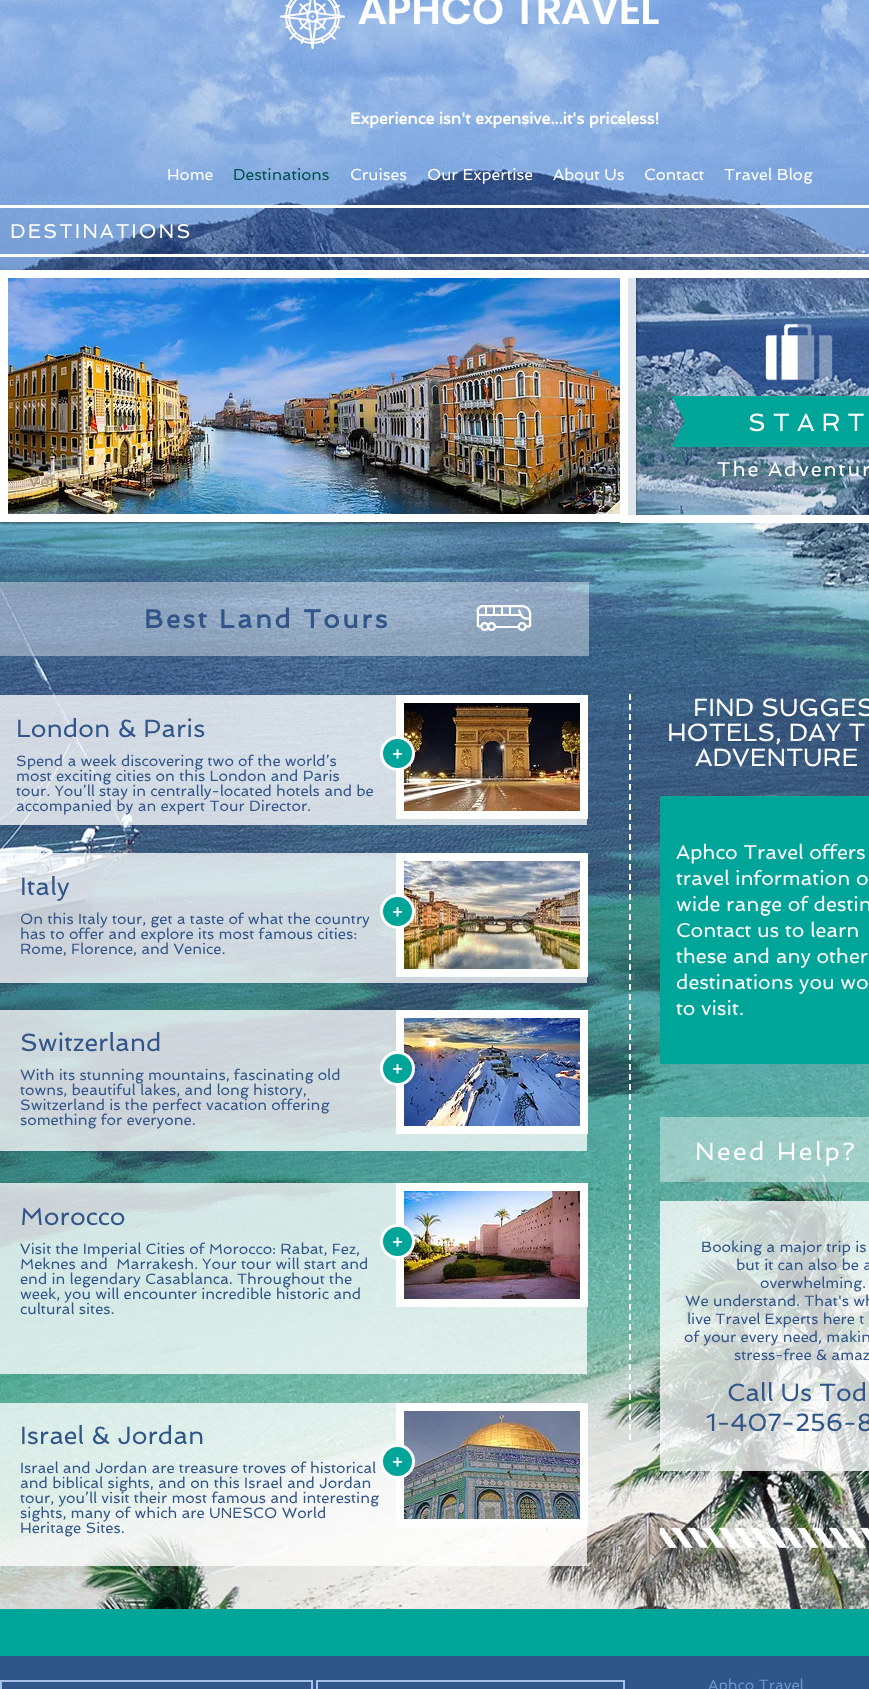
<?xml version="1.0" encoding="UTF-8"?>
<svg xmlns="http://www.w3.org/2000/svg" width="869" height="1689">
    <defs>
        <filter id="blur1" x="-50%" y="-200%" width="200%" height="500%"><feGaussianBlur stdDeviation="1.5"/></filter>
        <clipPath id="clip1"><rect x="672" y="396" width="128" height="26"/></clipPath>
        <clipPath id="clip2"><rect x="799" y="396" width="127" height="26"/></clipPath>
        <clipPath id="clip3"><rect x="672" y="421" width="128" height="26"/></clipPath>
        <clipPath id="clip4"><rect x="799" y="421" width="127" height="26"/></clipPath>
    </defs>
    <rect width="100%" height="100%" fill="#FFFFFF"/>
    <image x="0" y="0" width="869" height="1609" href="img_01.png"/>
    <image x="280" y="0" width="65" height="49" href="img_02.png"/>
    <text x="358" y="24" font-family="Poppins" font-size="41" font-weight="600" fill="#FFFFFF">APHCO TRAVEL</text>
    <text x="350" y="124" font-family="Spinnaker" font-size="16" font-weight="700" fill="#FFFFFF">Experience isn't expensive...it's priceless!</text>
    <text x="167" y="180" font-family="Spinnaker" font-size="16" fill="#FFFFFF">Home</text>
    <text x="233" y="180" font-family="Spinnaker" font-size="16" fill="#00524D">Destinations</text>
    <text x="350" y="180" font-family="Spinnaker" font-size="16" fill="#FFFFFF">Cruises</text>
    <text x="427" y="180" font-family="Spinnaker" font-size="16" fill="#FFFFFF">Our Expertise</text>
    <text x="553" y="180" font-family="Spinnaker" font-size="16" fill="#FFFFFF">About Us</text>
    <text x="644" y="180" font-family="Spinnaker" font-size="16" fill="#FFFFFF">Contact</text>
    <text x="724" y="180" font-family="Spinnaker" font-size="16" fill="#FFFFFF">Travel Blog</text>
    <rect x="0" y="205" width="869" height="3" fill="#FFFFFF"/>
    <text x="10" y="238" font-family="Spinnaker" font-size="20" letter-spacing="2" fill="#FFFFFF">DESTINATIONS</text>
    <rect x="0" y="254" width="869" height="3" fill="#FFFFFF"/>
    <rect x="0" y="271" width="636" height="252" fill="#000000" fill-opacity="0.5" filter="url(#blur1)"/>
    <rect x="0" y="270" width="636" height="252" fill="#FFFFFF"/>
    <rect x="624" y="274" width="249" height="245" fill="#305589" fill-opacity="0.16" stroke="#FFFFFF" stroke-width="8"/>
    <image x="765" y="323" width="68" height="58" href="img_03.png"/>
    <g clip-path="url(#clip1)">
        <path d="M 672 396 H 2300 L 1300 1396 H 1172 Z" fill="#00A59A"/>
    </g>
    <g clip-path="url(#clip2)">
        <path d="M -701 396 H 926 L 426 1396 H 299 Z" fill="#00A59A"/>
    </g>
    <g clip-path="url(#clip3)">
        <path d="M 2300 447 H 672 L 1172 -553 H 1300 Z" fill="#00A59A"/>
    </g>
    <g clip-path="url(#clip4)">
        <path d="M 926 447 H -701 L 299 -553 H 426 Z" fill="#00A59A"/>
    </g>
    <text x="748" y="431" font-family="Spinnaker" font-size="25" fill="#FFFFFF">S T A R T</text>
    <text x="717" y="476" font-family="Spinnaker" font-size="20" letter-spacing="2" fill="#FFFFFF">The Adventur</text>
    <image x="8" y="278" width="612" height="236" href="img_04.png"/>
    <text x="28" y="487" font-family="Spinnaker" font-size="17" fill="#A59272">Venice3</text>
    <rect x="0" y="582" width="589" height="74" fill="#FFFFFF" fill-opacity="0.4"/>
    <text x="144" y="628" font-family="Spinnaker" font-size="26" font-weight="700" letter-spacing="2.6" fill="#305589">Best Land Tours</text>
    <image x="476" y="605" width="56" height="26" href="img_05.png"/>
    <rect x="0" y="695" width="587" height="130" fill="#FFFFFF" fill-opacity="0.77"/>
    <text x="16" y="737" font-family="Spinnaker" font-size="25" fill="#305589">London &amp; Paris</text>
    <text font-family="Spinnaker" font-size="15" fill="#305589">
        <tspan x="16" y="766">Spend a week discovering two of the world’s</tspan>
        <tspan x="16" y="781">most exciting cities on this London and Paris</tspan>
        <tspan x="16" y="796">tour. You’ll stay in centrally-located hotels and be</tspan>
        <tspan x="16" y="811">accompanied by an expert Tour Director.</tspan>
    </text>
    <rect x="396" y="695" width="192" height="124" fill="#FFFFFF"/>
    <image x="404" y="703" width="176" height="108" href="img_06.png"/>
    <circle cx="397.5" cy="753.5" r="16" fill="#00A59A" stroke="#FFFFFF" stroke-width="3"/>
    <text x="391" y="759" font-family="Spinnaker" font-size="20" fill="#FFFFFF">+</text>
    <path d="M 630 694 V 1440" fill="none" stroke="#FFFFFF" stroke-width="2" stroke-dasharray="6 4"/>
    <text x="693" y="716" font-family="Spinnaker" font-size="25" fill="#FFFFFF">FIND SUGGES</text>
    <text x="667" y="741" font-family="Spinnaker" font-size="25" fill="#FFFFFF">HOTELS, DAY T</text>
    <text x="695" y="766" font-family="Spinnaker" font-size="25" fill="#FFFFFF">ADVENTURE</text>
    <rect x="0" y="853" width="587" height="130" fill="#FFFFFF" fill-opacity="0.77"/>
    <text x="20" y="895" font-family="Spinnaker" font-size="25" fill="#305589">Italy</text>
    <text font-family="Spinnaker" font-size="15" fill="#305589">
        <tspan x="20" y="924">On this Italy tour, get a taste of what the country</tspan>
        <tspan x="20" y="939">has to offer and explore its most famous cities:</tspan>
        <tspan x="20" y="954">Rome, Florence, and Venice.</tspan>
    </text>
    <rect x="396" y="853" width="192" height="124" fill="#FFFFFF"/>
    <image x="404" y="861" width="176" height="108" href="img_07.png"/>
    <circle cx="397.5" cy="911.5" r="16" fill="#00A59A" stroke="#FFFFFF" stroke-width="3"/>
    <text x="391" y="917" font-family="Spinnaker" font-size="20" fill="#FFFFFF">+</text>
    <rect x="660" y="796" width="209" height="268" fill="#00A59A"/>
    <text font-family="Spinnaker" font-size="20" fill="#FFFFFF">
        <tspan x="676" y="859">Aphco Travel offers</tspan>
        <tspan x="676" y="885">travel information o</tspan>
        <tspan x="676" y="911">wide range of destin</tspan>
        <tspan x="676" y="937">Contact us to learn</tspan>
        <tspan x="676" y="963">these and any other</tspan>
        <tspan x="676" y="989">destinations you wo</tspan>
        <tspan x="676" y="1015">to visit.</tspan>
    </text>
    <rect x="0" y="1010" width="587" height="141" fill="#FFFFFF" fill-opacity="0.77"/>
    <text x="20" y="1051" font-family="Spinnaker" font-size="25" fill="#305589">Switzerland</text>
    <text font-family="Spinnaker" font-size="15" fill="#305589">
        <tspan x="20" y="1080">With its stunning mountains, fascinating old</tspan>
        <tspan x="20" y="1095">towns, beautiful lakes, and long history,</tspan>
        <tspan x="20" y="1110">Switzerland is the perfect vacation offering</tspan>
        <tspan x="20" y="1125">something for everyone.</tspan>
    </text>
    <rect x="396" y="1010" width="192" height="124" fill="#FFFFFF"/>
    <image x="404" y="1018" width="176" height="108" href="img_08.png"/>
    <circle cx="397.5" cy="1068.5" r="16" fill="#00A59A" stroke="#FFFFFF" stroke-width="3"/>
    <text x="391" y="1074" font-family="Spinnaker" font-size="20" fill="#FFFFFF">+</text>
    <rect x="660" y="1117" width="209" height="65" fill="#FFFFFF" fill-opacity="0.4"/>
    <text x="695" y="1160" font-family="Spinnaker" font-size="25" letter-spacing="2.5" fill="#FFFFFF">Need Help?</text>
    <rect x="0" y="1183" width="587" height="191" fill="#FFFFFF" fill-opacity="0.77"/>
    <text x="20" y="1225" font-family="Spinnaker" font-size="25" fill="#305589">Morocco</text>
    <text font-family="Spinnaker" font-size="15" fill="#305589" xml:space="preserve"><tspan x="20" y="1254">Visit the Imperial Cities of Morocco: Rabat, Fez,</tspan><tspan x="20" y="1269">Meknes and  Marrakesh. Your tour will start and</tspan><tspan x="20" y="1284">end in legendary Casablanca. Throughout the</tspan><tspan x="20" y="1299">week, you will encounter incredible historic and</tspan><tspan x="20" y="1314">cultural sites.</tspan></text>
    <rect x="396" y="1183" width="192" height="124" fill="#FFFFFF"/>
    <image x="404" y="1191" width="176" height="108" href="img_09.png"/>
    <circle cx="397.5" cy="1241.5" r="16" fill="#00A59A" stroke="#FFFFFF" stroke-width="3"/>
    <text x="391" y="1247" font-family="Spinnaker" font-size="20" fill="#FFFFFF">+</text>
    <rect x="660" y="1201" width="209" height="270" fill="#FFFFFF" fill-opacity="0.77"/>
    <text x="701" y="1252" font-family="Spinnaker" font-size="15" fill="#305589">Booking a major trip is</text>
    <text x="736" y="1270" font-family="Spinnaker" font-size="15" fill="#305589">but it can also be a</text>
    <text x="760" y="1288" font-family="Spinnaker" font-size="15" fill="#305589">overwhelming.</text>
    <text x="685" y="1306" font-family="Spinnaker" font-size="15" fill="#305589">We understand. That's wh</text>
    <text x="687" y="1324" font-family="Spinnaker" font-size="15" fill="#305589">live Travel Experts here t</text>
    <text x="684" y="1342" font-family="Spinnaker" font-size="15" fill="#305589">of your every need, makin</text>
    <text x="734" y="1360" font-family="Spinnaker" font-size="15" fill="#305589">stress-free &amp; amaz</text>
    <text x="727" y="1401" font-family="Spinnaker" font-size="25" fill="#305589">Call Us Tod</text>
    <text x="706" y="1431" font-family="Spinnaker" font-size="25" fill="#305589">1-407-256-8</text>
    <rect x="0" y="1403" width="587" height="163" fill="#FFFFFF" fill-opacity="0.77"/>
    <text x="20" y="1444" font-family="Spinnaker" font-size="25" fill="#305589">Israel &amp; Jordan</text>
    <text font-family="Spinnaker" font-size="15" fill="#305589">
        <tspan x="20" y="1473">Israel and Jordan are treasure troves of historical</tspan>
        <tspan x="20" y="1488">and biblical sights, and on this Israel and Jordan</tspan>
        <tspan x="20" y="1503">tour, you’ll visit their most famous and interesting</tspan>
        <tspan x="20" y="1518">sights, many of which are UNESCO World</tspan>
        <tspan x="20" y="1533">Heritage Sites.</tspan>
    </text>
    <rect x="396" y="1403" width="192" height="124" fill="#FFFFFF"/>
    <image x="404" y="1411" width="176" height="108" href="img_10.png"/>
    <circle cx="397.5" cy="1461.5" r="16" fill="#00A59A" stroke="#FFFFFF" stroke-width="3"/>
    <text x="391" y="1467" font-family="Spinnaker" font-size="20" fill="#FFFFFF">+</text>
    <image x="660" y="1527" width="209" height="21" href="img_11.png"/>
    <rect x="0" y="1609" width="869" height="47" fill="#00A59A"/>
    <rect x="0" y="1656" width="869" height="33" fill="#305589"/>
    <rect x="1" y="1681" width="311" height="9" fill="none" stroke="#A6C1E8" stroke-width="2"/>
    <rect x="317" y="1681" width="307" height="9" fill="none" stroke="#A6C1E8" stroke-width="2"/>
    <text x="708" y="1690" font-family="Spinnaker" font-size="15" fill="#7297CE">Aphco Travel</text>
</svg>
